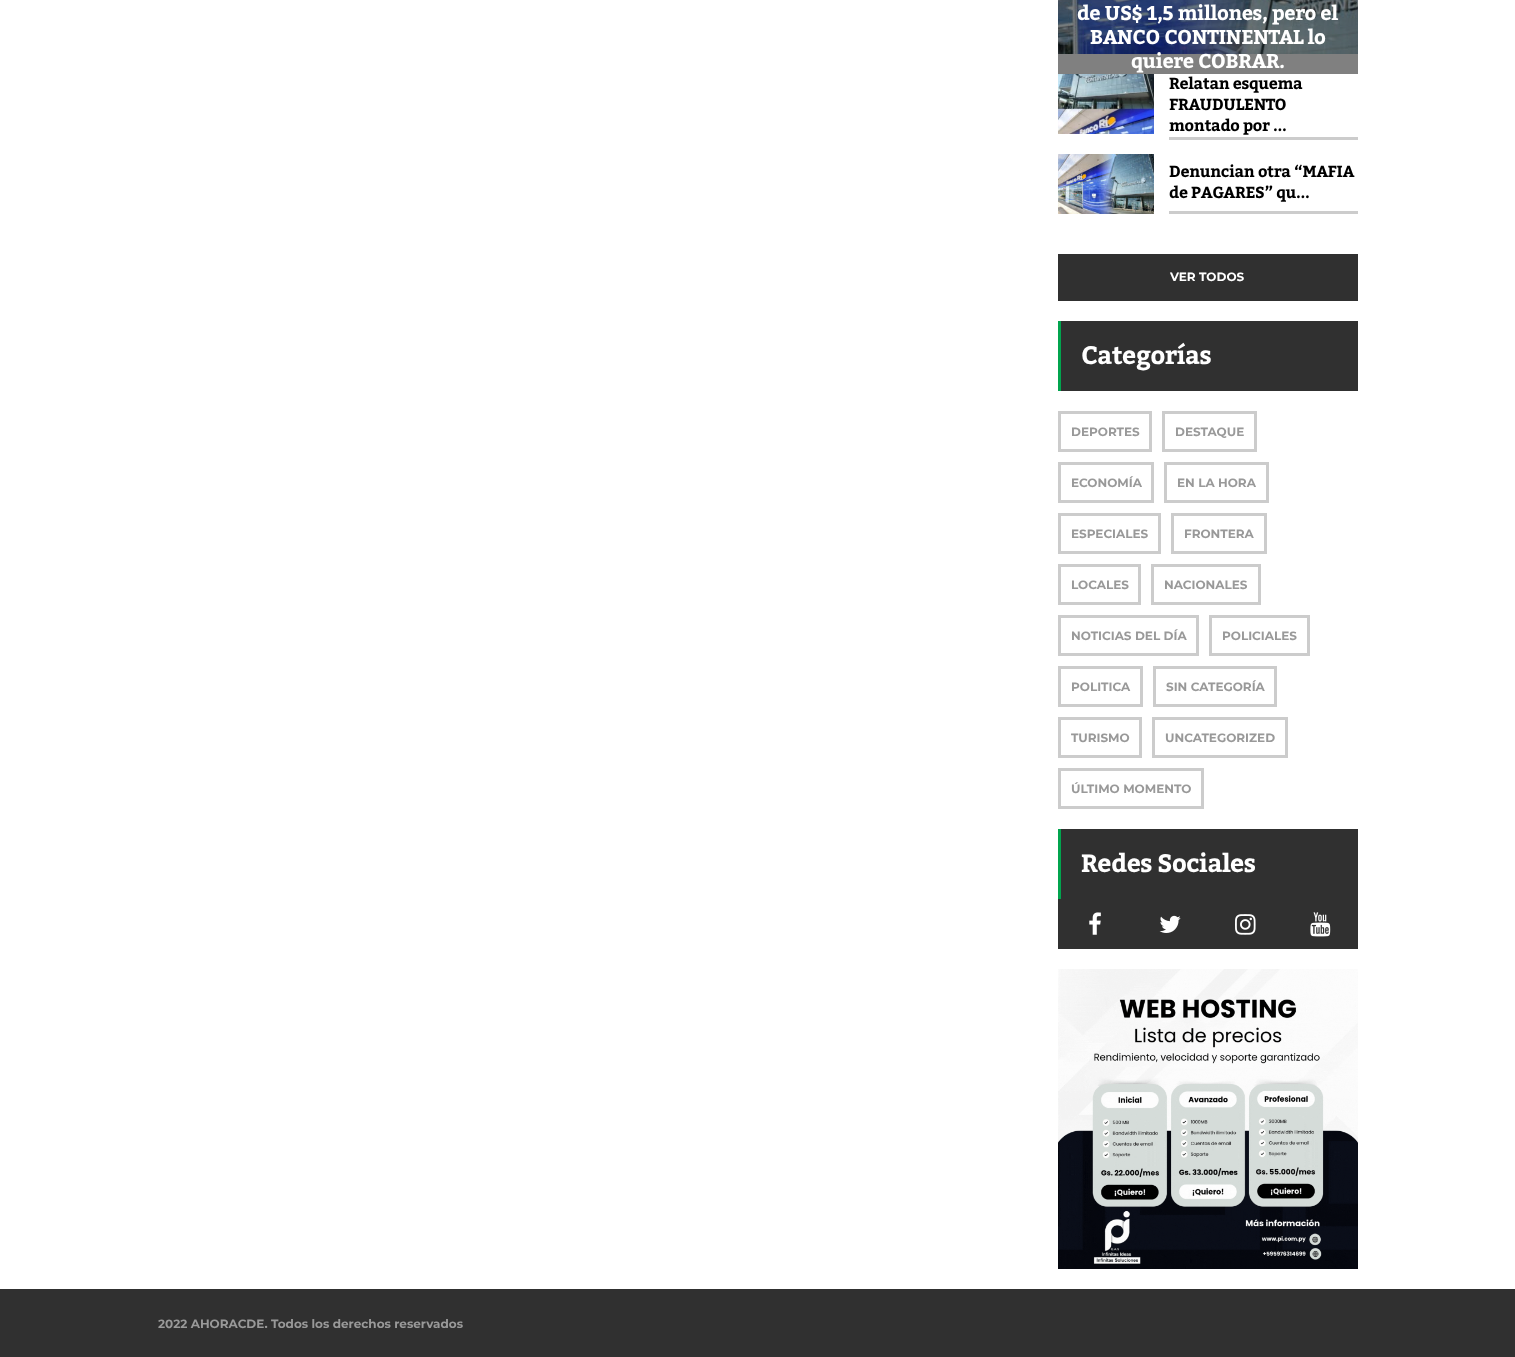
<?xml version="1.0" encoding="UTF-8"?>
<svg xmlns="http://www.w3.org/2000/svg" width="1515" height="1357">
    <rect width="100%" height="100%" fill="#FFFFFF"/>
    <rect x="1058" y="54" width="300" height="20" fill="#808080"/>
    <image x="1058" y="0" width="300" height="54" href="img_01.png"/>
    <text x="1077" y="20" font-family="Kadwa" font-size="20" font-weight="700" letter-spacing="-0.4" fill="#FFFFFF">de US$ 1,5 millones, pero el</text>
    <text x="1090" y="44" font-family="Kadwa" font-size="20" font-weight="700" letter-spacing="-0.4" fill="#FFFFFF">BANCO CONTINENTAL lo</text>
    <text x="1131" y="68" font-family="Kadwa" font-size="20" font-weight="700" letter-spacing="-0.4" fill="#FFFFFF">quiere COBRAR.</text>
    <image x="1058" y="74" width="96" height="60" href="img_02.png"/>
    <rect x="1169" y="137" width="189" height="3" fill="#CCCCCC"/>
    <text font-family="Kadwa" font-size="16" font-weight="700" letter-spacing="-0.3" fill="#000000">
        <tspan x="1169" y="89">Relatan esquema</tspan>
        <tspan x="1169" y="110">FRAUDULENTO</tspan>
        <tspan x="1169" y="131">montado por ...</tspan>
    </text>
    <image x="1058" y="154" width="96" height="60" href="img_03.png"/>
    <rect x="1169" y="211" width="189" height="3" fill="#CCCCCC"/>
    <text font-family="Kadwa" font-size="16" font-weight="700" letter-spacing="-0.3" fill="#000000">
        <tspan x="1169" y="177">Denuncian otra “MAFIA</tspan>
        <tspan x="1169" y="198">de PAGARES” qu...</tspan>
    </text>
    <rect x="1058" y="254" width="300" height="47" fill="#303030"/>
    <text x="1170" y="281" font-family="Montserrat" font-size="12" font-weight="700" fill="#FFFFFF">VER TODOS</text>
    <rect x="1061" y="321" width="297" height="70" fill="#303030"/>
    <rect x="1058" y="321" width="3" height="70" fill="#01A44E"/>
    <text x="1081" y="364" font-family="Kadwa" font-size="25" font-weight="700" letter-spacing="-0.5" fill="#FFFFFF">Categorías</text>
    <rect x="1059.5" y="412.5" width="91" height="38" fill="none" stroke="#CCCCCC" stroke-width="3"/>
    <text x="1071" y="436" font-family="Montserrat" font-size="12" font-weight="700" fill="#999999">DEPORTES</text>
    <rect x="1163.5" y="412.5" width="92" height="38" fill="none" stroke="#CCCCCC" stroke-width="3"/>
    <text x="1175" y="436" font-family="Montserrat" font-size="12" font-weight="700" fill="#999999">DESTAQUE</text>
    <rect x="1059.5" y="463.5" width="93" height="38" fill="none" stroke="#CCCCCC" stroke-width="3"/>
    <text x="1071" y="487" font-family="Montserrat" font-size="12" font-weight="700" fill="#999999">ECONOMÍA</text>
    <rect x="1165.5" y="463.5" width="102" height="38" fill="none" stroke="#CCCCCC" stroke-width="3"/>
    <text x="1177" y="487" font-family="Montserrat" font-size="12" font-weight="700" fill="#999999">EN LA HORA</text>
    <rect x="1059.5" y="514.5" width="100" height="38" fill="none" stroke="#CCCCCC" stroke-width="3"/>
    <text x="1071" y="538" font-family="Montserrat" font-size="12" font-weight="700" fill="#999999">ESPECIALES</text>
    <rect x="1172.5" y="514.5" width="93" height="38" fill="none" stroke="#CCCCCC" stroke-width="3"/>
    <text x="1184" y="538" font-family="Montserrat" font-size="12" font-weight="700" fill="#999999">FRONTERA</text>
    <rect x="1059.5" y="565.5" width="80" height="38" fill="none" stroke="#CCCCCC" stroke-width="3"/>
    <text x="1071" y="589" font-family="Montserrat" font-size="12" font-weight="700" fill="#999999">LOCALES</text>
    <rect x="1152.5" y="565.5" width="107" height="38" fill="none" stroke="#CCCCCC" stroke-width="3"/>
    <text x="1164" y="589" font-family="Montserrat" font-size="12" font-weight="700" fill="#999999">NACIONALES</text>
    <rect x="1059.5" y="616.5" width="138" height="38" fill="none" stroke="#CCCCCC" stroke-width="3"/>
    <text x="1071" y="640" font-family="Montserrat" font-size="12" font-weight="700" fill="#999999">NOTICIAS DEL DÍA</text>
    <rect x="1210.5" y="616.5" width="98" height="38" fill="none" stroke="#CCCCCC" stroke-width="3"/>
    <text x="1222" y="640" font-family="Montserrat" font-size="12" font-weight="700" fill="#999999">POLICIALES</text>
    <rect x="1059.5" y="667.5" width="82" height="38" fill="none" stroke="#CCCCCC" stroke-width="3"/>
    <text x="1071" y="691" font-family="Montserrat" font-size="12" font-weight="700" fill="#999999">POLITICA</text>
    <rect x="1154.5" y="667.5" width="121" height="38" fill="none" stroke="#CCCCCC" stroke-width="3"/>
    <text x="1166" y="691" font-family="Montserrat" font-size="12" font-weight="700" fill="#999999">SIN CATEGORÍA</text>
    <rect x="1059.5" y="718.5" width="81" height="38" fill="none" stroke="#CCCCCC" stroke-width="3"/>
    <text x="1071" y="742" font-family="Montserrat" font-size="12" font-weight="700" fill="#999999">TURISMO</text>
    <rect x="1153.5" y="718.5" width="133" height="38" fill="none" stroke="#CCCCCC" stroke-width="3"/>
    <text x="1165" y="742" font-family="Montserrat" font-size="12" font-weight="700" fill="#999999">UNCATEGORIZED</text>
    <rect x="1059.5" y="769.5" width="143" height="38" fill="none" stroke="#CCCCCC" stroke-width="3"/>
    <text x="1071" y="793" font-family="Montserrat" font-size="12" font-weight="700" fill="#999999">ÚLTIMO MOMENTO</text>
    <rect x="1061" y="829" width="297" height="70" fill="#303030"/>
    <rect x="1058" y="829" width="3" height="70" fill="#01A44E"/>
    <text x="1081" y="872" font-family="Kadwa" font-size="25" font-weight="700" letter-spacing="-0.5" fill="#FFFFFF">Redes Sociales</text>
    <rect x="1058" y="899" width="300" height="50" fill="#303030"/>
    <image x="1089" y="912" width="12" height="23" href="img_04.png"/>
    <image x="1159" y="915" width="22" height="18" href="img_05.png"/>
    <image x="1235" y="914" width="21" height="21" href="img_06.png"/>
    <image x="1310" y="912" width="21" height="25" href="img_07.png"/>
    <image x="1058" y="969" width="300" height="300" href="img_08.png"/>
    <rect x="0" y="1289" width="1515" height="68" fill="#303030"/>
    <text x="158" y="1328" font-family="Montserrat" font-size="12" font-weight="700" fill="#999999">2022 AHORACDE. Todos los derechos reservados</text>
</svg>
